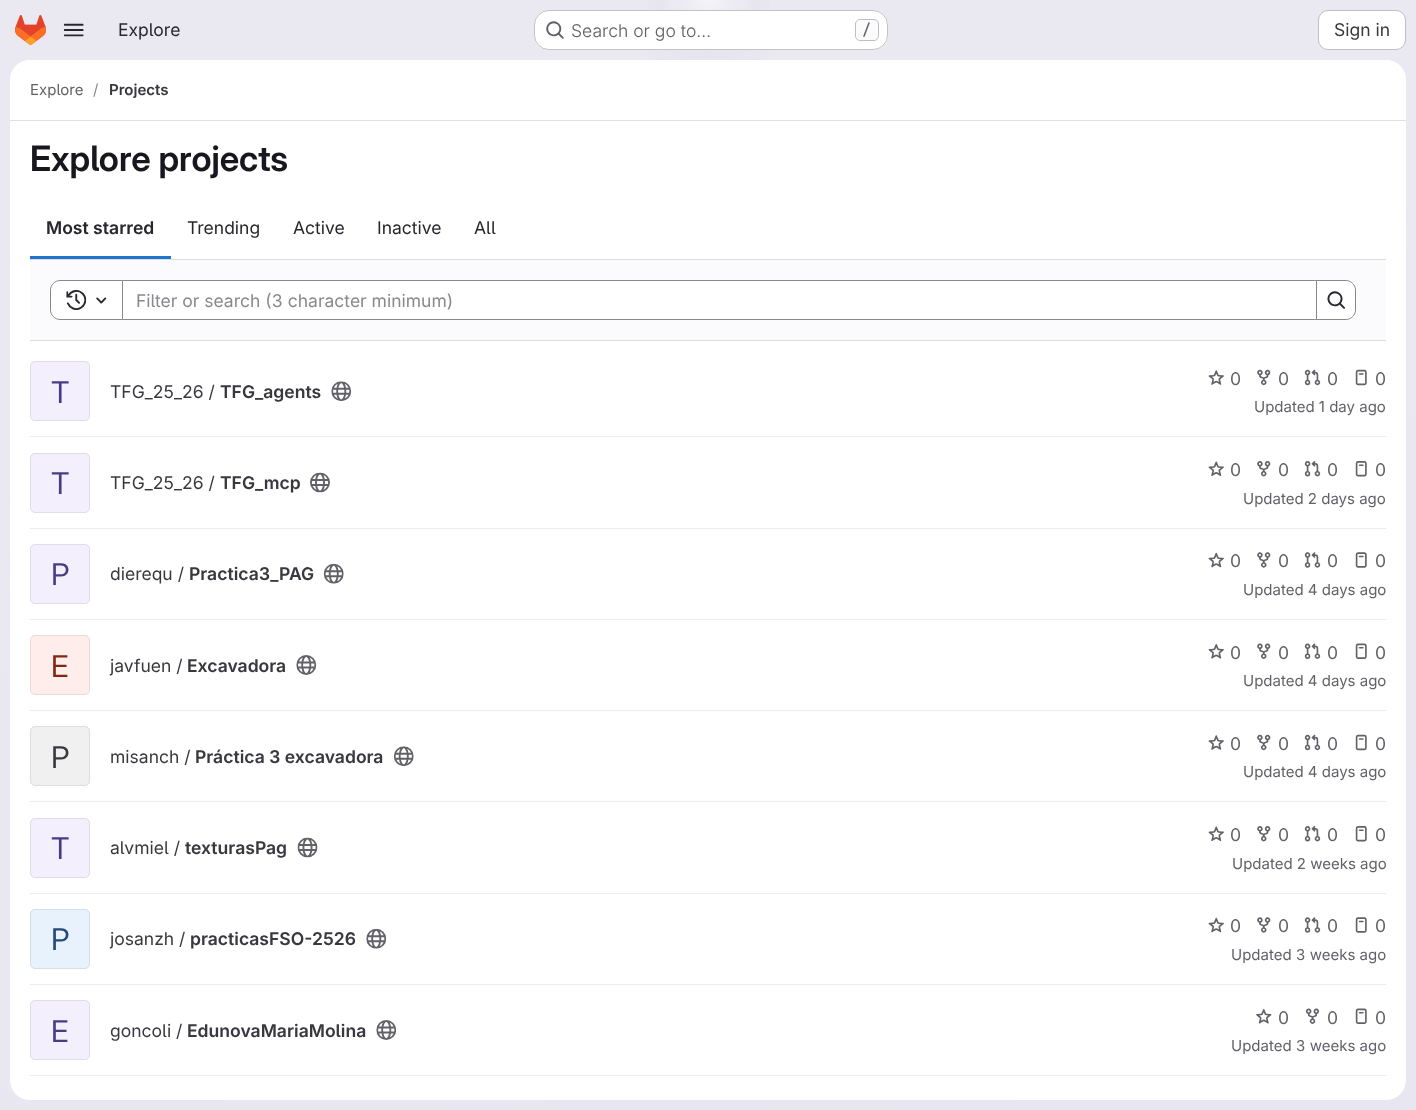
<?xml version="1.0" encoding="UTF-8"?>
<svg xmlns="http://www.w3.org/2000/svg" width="1416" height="1110">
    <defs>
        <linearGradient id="g1" gradientUnits="userSpaceOnUse" x1="824" y1="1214" x2="592" y2="-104"><stop offset="0" stop-color="#E8E6F0"/><stop offset="0.7" stop-color="#EAE9F2"/></linearGradient>
        <radialGradient id="g2" gradientUnits="userSpaceOnUse" cx="0" cy="0" r="1" gradientTransform="matrix(708 0 0 1110 708 0)"><stop offset="0" stop-color="#E4E2ED"/><stop offset="0.12" stop-color="#E4E2ED" stop-opacity="0"/></radialGradient>
        <radialGradient id="g3" gradientUnits="userSpaceOnUse" cx="0" cy="0" r="1" gradientTransform="matrix(708 0 0 1110 708 0)"><stop offset="0" stop-color="#E4E2EC"/><stop offset="0.09" stop-color="#E4E2EC" stop-opacity="0"/></radialGradient>
        <radialGradient id="g4" gradientUnits="userSpaceOnUse" cx="708" cy="0" r="1317"><stop offset="0" stop-color="#FFFFFF" stop-opacity="0.6"/><stop offset="0.04" stop-color="#FFFFFF" stop-opacity="0"/></radialGradient>
    </defs>
    <rect width="100%" height="100%" fill="#FFFFFF"/>
    <rect x="0" y="0" width="1416" height="1110" fill="url(#g1)"/>
    <rect x="647" y="0" width="122" height="60" fill="url(#g2)"/>
    <rect x="678" y="1" width="60" height="39" fill="url(#g3)"/>
    <rect x="664" y="0" width="88" height="44" fill="url(#g4)"/>
    <image x="15" y="15" width="31" height="30" href="img_01.png"/>
    <image x="63" y="23" width="21" height="14" href="img_02.png"/>
    <text x="118" y="36" font-family="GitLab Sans" font-size="17.5" fill="#28272D">Explore</text>
    <rect x="534" y="10" width="354" height="40" rx="15" fill="#FFFFFF"/>
    <rect x="534.5" y="10.5" width="353" height="39" rx="14.5" fill="none" stroke="#050506" stroke-opacity="0.24"/>
    <image x="546" y="21" width="18" height="18" href="img_03.png"/>
    <text x="571" y="37" font-family="GitLab Sans" font-size="17.5" font-weight="300" fill="#626168">Search or go to…</text>
    <rect x="855.5" y="19.5" width="23" height="21" rx="4.5" fill="#FBFAFD" stroke="#BFBFC3"/>
    <text x="862" y="35" font-family="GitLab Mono" font-size="15" font-weight="500" fill="#626168">/</text>
    <rect x="1318.5" y="10.5" width="87" height="39" rx="9.5" fill="#FFFFFF" stroke="#BFBFC3"/>
    <text x="1334" y="36" font-family="GitLab Sans" font-size="17.5" fill="#3A383F">Sign in</text>
    <rect x="10" y="60" width="1396" height="1040" rx="20" fill="#FFFFFF"/>
    <path d="M 30 60 H 1386 C 1397 60 1406 69 1406 80 V 121 H 10 V 80 C 10 69 19 60 30 60 Z" fill="#FFFFFF"/>
    <rect x="10" y="120" width="1396" height="1" fill="#E1DFEC"/>
    <text x="30" y="95" font-family="GitLab Sans" font-size="15" fill="#626168">Explore</text>
    <text x="93" y="95" font-family="GitLab Sans" font-size="15" fill="#89888D">/</text>
    <text x="109" y="95" font-family="'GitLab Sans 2'" font-size="15" font-weight="600" fill="#3A383F">Projects</text>
    <text x="30" y="171" font-family="GitLab Sans" font-size="35" font-weight="600" fill="#18171D">Explore projects</text>
    <text x="46" y="234" font-family="'GitLab Sans 2'" font-size="17.5" font-weight="600" fill="#28272D">Most starred</text>
    <rect x="30" y="256" width="141" height="3" fill="#1F75CB"/>
    <text x="187" y="234" font-family="GitLab Sans" font-size="17.5" fill="#28272D">Trending</text>
    <text x="293" y="234" font-family="GitLab Sans" font-size="17.5" fill="#28272D">Active</text>
    <text x="377" y="234" font-family="GitLab Sans" font-size="17.5" fill="#28272D">Inactive</text>
    <text x="474" y="234" font-family="GitLab Sans" font-size="17.5" fill="#28272D">All</text>
    <rect x="30" y="260" width="1356" height="80" fill="#FBFAFD"/>
    <rect x="30" y="259" width="1356" height="1" fill="#DCDCDE"/>
    <rect x="30" y="340" width="1356" height="1" fill="#DCDCDE"/>
    <rect x="123" y="281" width="1193" height="38" fill="#FFFFFF"/>
    <rect x="121.5" y="280.5" width="1196" height="39" fill="none" stroke="#89888D"/>
    <path d="M 60 280.5 H 122.5 V 319.5 H 60 C 55 319.5 50.5 315 50.5 310 V 290 C 50.5 285 55 280.5 60 280.5 Z" fill="#FFFFFF" stroke="#89888D"/>
    <image x="66" y="290" width="21" height="20" href="img_04.png"/>
    <image x="96" y="297" width="11" height="7" href="img_05.png"/>
    <text x="136" y="307" font-family="GitLab Sans" font-size="17.5" fill="#89888D">Filter or search (3 character minimum)</text>
    <path d="M 1316.5 280.5 H 1346 C 1351 280.5 1355.5 285 1355.5 290 V 310 C 1355.5 315 1351 319.5 1346 319.5 H 1316.5 Z" fill="#FFFFFF" stroke="#89888D"/>
    <image x="1327" y="291" width="18" height="18" href="img_06.png"/>
    <rect x="30" y="436" width="1356" height="1" fill="#ECECEF"/>
    <rect x="30" y="361" width="60" height="60" rx="5" fill="#F3EFFC"/>
    <rect x="30.5" y="361.5" width="59" height="59" rx="4.5" fill="none" stroke="#050506" stroke-opacity="0.08"/>
    <text x="51" y="403" font-family="'GitLab Sans 2'" font-size="30" fill="#493C83">T</text>
    <text x="110" y="398" font-family="GitLab Sans" font-size="17.5" fill="#3A383F">TFG_25_26 /</text>
    <text x="220" y="398" font-family="'GitLab Sans 2'" font-size="17.5" font-weight="600" fill="#3A383F">TFG_agents</text>
    <image x="331" y="381" width="21" height="21" href="img_07.png"/>
    <image x="1208" y="370" width="16" height="15" href="img_08.png"/>
    <text x="1230" y="385" font-family="GitLab Sans" font-size="17.5" fill="#626168">0</text>
    <image x="1257" y="369" width="14" height="17" href="img_09.png"/>
    <text x="1278" y="385" font-family="GitLab Sans" font-size="17.5" fill="#626168">0</text>
    <image x="1304" y="369" width="17" height="17" href="img_10.png"/>
    <text x="1327" y="385" font-family="GitLab Sans" font-size="17.5" fill="#626168">0</text>
    <image x="1355" y="369" width="12" height="17" href="img_11.png"/>
    <text x="1375" y="385" font-family="GitLab Sans" font-size="17.5" fill="#626168">0</text>
    <text x="1254" y="412" font-family="GitLab Sans" font-size="15" fill="#626168">Updated 1 day ago</text>
    <rect x="30" y="528" width="1356" height="1" fill="#ECECEF"/>
    <rect x="30" y="453" width="60" height="60" rx="5" fill="#F3EFFC"/>
    <rect x="30.5" y="453.5" width="59" height="59" rx="4.5" fill="none" stroke="#050506" stroke-opacity="0.08"/>
    <text x="51" y="494" font-family="'GitLab Sans 2'" font-size="30" fill="#493C83">T</text>
    <text x="110" y="489" font-family="GitLab Sans" font-size="17.5" fill="#3A383F">TFG_25_26 /</text>
    <text x="220" y="489" font-family="'GitLab Sans 2'" font-size="17.5" font-weight="600" fill="#3A383F">TFG_mcp</text>
    <image x="310" y="472" width="20" height="21" href="img_12.png"/>
    <image x="1208" y="461" width="16" height="15" href="img_13.png"/>
    <text x="1230" y="476" font-family="GitLab Sans" font-size="17.5" fill="#626168">0</text>
    <image x="1257" y="461" width="14" height="16" href="img_14.png"/>
    <text x="1278" y="476" font-family="GitLab Sans" font-size="17.5" fill="#626168">0</text>
    <image x="1304" y="461" width="17" height="16" href="img_15.png"/>
    <text x="1327" y="476" font-family="GitLab Sans" font-size="17.5" fill="#626168">0</text>
    <image x="1355" y="461" width="12" height="16" href="img_16.png"/>
    <text x="1375" y="476" font-family="GitLab Sans" font-size="17.5" fill="#626168">0</text>
    <text x="1243" y="504" font-family="GitLab Sans" font-size="15" fill="#626168">Updated 2 days ago</text>
    <rect x="30" y="619" width="1356" height="1" fill="#ECECEF"/>
    <rect x="30" y="544" width="60" height="60" rx="5" fill="#F3EFFC"/>
    <rect x="30.5" y="544.5" width="59" height="59" rx="4.5" fill="none" stroke="#050506" stroke-opacity="0.08"/>
    <text x="51" y="585" font-family="'GitLab Sans 2'" font-size="30" fill="#493C83">P</text>
    <text x="110" y="580" font-family="GitLab Sans" font-size="17.5" fill="#3A383F">dierequ /</text>
    <text x="189" y="580" font-family="'GitLab Sans 2'" font-size="17.5" font-weight="600" fill="#3A383F">Practica3_PAG</text>
    <image x="323" y="563" width="21" height="21" href="img_17.png"/>
    <image x="1208" y="552" width="16" height="16" href="img_18.png"/>
    <text x="1230" y="567" font-family="GitLab Sans" font-size="17.5" fill="#626168">0</text>
    <image x="1257" y="552" width="14" height="16" href="img_19.png"/>
    <text x="1278" y="567" font-family="GitLab Sans" font-size="17.5" fill="#626168">0</text>
    <image x="1304" y="552" width="17" height="16" href="img_20.png"/>
    <text x="1327" y="567" font-family="GitLab Sans" font-size="17.5" fill="#626168">0</text>
    <image x="1355" y="552" width="12" height="16" href="img_21.png"/>
    <text x="1375" y="567" font-family="GitLab Sans" font-size="17.5" fill="#626168">0</text>
    <text x="1243" y="595" font-family="GitLab Sans" font-size="15" fill="#626168">Updated 4 days ago</text>
    <rect x="30" y="710" width="1356" height="1" fill="#ECECEF"/>
    <rect x="30" y="635" width="60" height="60" rx="5" fill="#FEEDEB"/>
    <rect x="30.5" y="635.5" width="59" height="59" rx="4.5" fill="none" stroke="#050506" stroke-opacity="0.08"/>
    <text x="51" y="677" font-family="'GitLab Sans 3'" font-size="30" fill="#812713">E</text>
    <text x="110" y="672" font-family="GitLab Sans" font-size="17.5" fill="#3A383F">javfuen /</text>
    <text x="187" y="672" font-family="'GitLab Sans 2'" font-size="17.5" font-weight="600" fill="#3A383F">Excavadora</text>
    <image x="296" y="655" width="21" height="20" href="img_22.png"/>
    <image x="1208" y="644" width="16" height="15" href="img_23.png"/>
    <text x="1230" y="659" font-family="GitLab Sans" font-size="17.5" fill="#626168">0</text>
    <image x="1257" y="643" width="14" height="16" href="img_24.png"/>
    <text x="1278" y="659" font-family="GitLab Sans" font-size="17.5" fill="#626168">0</text>
    <image x="1304" y="643" width="17" height="16" href="img_25.png"/>
    <text x="1327" y="659" font-family="GitLab Sans" font-size="17.5" fill="#626168">0</text>
    <image x="1355" y="643" width="12" height="16" href="img_26.png"/>
    <text x="1375" y="659" font-family="GitLab Sans" font-size="17.5" fill="#626168">0</text>
    <text x="1243" y="686" font-family="GitLab Sans" font-size="15" fill="#626168">Updated 4 days ago</text>
    <rect x="30" y="801" width="1356" height="1" fill="#ECECEF"/>
    <rect x="30" y="726" width="60" height="60" rx="5" fill="#F0F0F1"/>
    <rect x="30.5" y="726.5" width="59" height="59" rx="4.5" fill="none" stroke="#050506" stroke-opacity="0.08"/>
    <text x="51" y="768" font-family="'GitLab Sans 2'" font-size="30" fill="#3A383F">P</text>
    <text x="110" y="763" font-family="GitLab Sans" font-size="17.5" fill="#3A383F">misanch /</text>
    <text x="195" y="763" font-family="'GitLab Sans 2'" font-size="17.5" font-weight="600" fill="#3A383F">Práctica 3 excavadora</text>
    <image x="393" y="746" width="21" height="21" href="img_27.png"/>
    <image x="1208" y="735" width="16" height="15" href="img_08.png"/>
    <text x="1230" y="750" font-family="GitLab Sans" font-size="17.5" fill="#626168">0</text>
    <image x="1257" y="734" width="14" height="17" href="img_09.png"/>
    <text x="1278" y="750" font-family="GitLab Sans" font-size="17.5" fill="#626168">0</text>
    <image x="1304" y="734" width="17" height="17" href="img_10.png"/>
    <text x="1327" y="750" font-family="GitLab Sans" font-size="17.5" fill="#626168">0</text>
    <image x="1355" y="734" width="12" height="17" href="img_11.png"/>
    <text x="1375" y="750" font-family="GitLab Sans" font-size="17.5" fill="#626168">0</text>
    <text x="1243" y="777" font-family="GitLab Sans" font-size="15" fill="#626168">Updated 4 days ago</text>
    <rect x="30" y="893" width="1356" height="1" fill="#ECECEF"/>
    <rect x="30" y="818" width="60" height="60" rx="5" fill="#F3EFFC"/>
    <rect x="30.5" y="818.5" width="59" height="59" rx="4.5" fill="none" stroke="#050506" stroke-opacity="0.08"/>
    <text x="51" y="859" font-family="'GitLab Sans 2'" font-size="30" fill="#493C83">T</text>
    <text x="110" y="854" font-family="GitLab Sans" font-size="17.5" fill="#3A383F">alvmiel /</text>
    <text x="185" y="854" font-family="'GitLab Sans 2'" font-size="17.5" font-weight="600" fill="#3A383F">texturasPag</text>
    <image x="297" y="837" width="21" height="21" href="img_28.png"/>
    <image x="1208" y="826" width="16" height="15" href="img_13.png"/>
    <text x="1230" y="841" font-family="GitLab Sans" font-size="17.5" fill="#626168">0</text>
    <image x="1257" y="826" width="14" height="16" href="img_14.png"/>
    <text x="1278" y="841" font-family="GitLab Sans" font-size="17.5" fill="#626168">0</text>
    <image x="1304" y="826" width="17" height="16" href="img_29.png"/>
    <text x="1327" y="841" font-family="GitLab Sans" font-size="17.5" fill="#626168">0</text>
    <image x="1355" y="826" width="12" height="16" href="img_16.png"/>
    <text x="1375" y="841" font-family="GitLab Sans" font-size="17.5" fill="#626168">0</text>
    <text x="1232" y="869" font-family="GitLab Sans" font-size="15" fill="#626168">Updated 2 weeks ago</text>
    <rect x="30" y="984" width="1356" height="1" fill="#ECECEF"/>
    <rect x="30" y="909" width="60" height="60" rx="5" fill="#E7F2FC"/>
    <rect x="30.5" y="909.5" width="59" height="59" rx="4.5" fill="none" stroke="#050506" stroke-opacity="0.08"/>
    <text x="51" y="950" font-family="'GitLab Sans 2'" font-size="30" fill="#284779">P</text>
    <text x="110" y="945" font-family="GitLab Sans" font-size="17.5" fill="#3A383F">josanzh /</text>
    <text x="190" y="945" font-family="'GitLab Sans 2'" font-size="17.5" font-weight="600" fill="#3A383F">practicasFSO-2526</text>
    <image x="366" y="928" width="21" height="21" href="img_30.png"/>
    <image x="1208" y="917" width="16" height="16" href="img_18.png"/>
    <text x="1230" y="932" font-family="GitLab Sans" font-size="17.5" fill="#626168">0</text>
    <image x="1257" y="917" width="14" height="16" href="img_19.png"/>
    <text x="1278" y="932" font-family="GitLab Sans" font-size="17.5" fill="#626168">0</text>
    <image x="1304" y="917" width="17" height="16" href="img_20.png"/>
    <text x="1327" y="932" font-family="GitLab Sans" font-size="17.5" fill="#626168">0</text>
    <image x="1355" y="917" width="12" height="16" href="img_21.png"/>
    <text x="1375" y="932" font-family="GitLab Sans" font-size="17.5" fill="#626168">0</text>
    <text x="1231" y="960" font-family="GitLab Sans" font-size="15" fill="#626168">Updated 3 weeks ago</text>
    <rect x="30" y="1075" width="1356" height="1" fill="#ECECEF"/>
    <rect x="30" y="1000" width="60" height="60" rx="5" fill="#F3EFFC"/>
    <rect x="30.5" y="1000.5" width="59" height="59" rx="4.5" fill="none" stroke="#050506" stroke-opacity="0.08"/>
    <text x="51" y="1042" font-family="'GitLab Sans 3'" font-size="30" fill="#493C83">E</text>
    <text x="110" y="1037" font-family="GitLab Sans" font-size="17.5" fill="#3A383F">goncoli /</text>
    <text x="187" y="1037" font-family="'GitLab Sans 2'" font-size="17.5" font-weight="600" fill="#3A383F">EdunovaMariaMolina</text>
    <image x="376" y="1020" width="21" height="20" href="img_22.png"/>
    <image x="1256" y="1009" width="16" height="15" href="img_31.png"/>
    <text x="1278" y="1024" font-family="GitLab Sans" font-size="17.5" fill="#626168">0</text>
    <image x="1305" y="1008" width="15" height="16" href="img_32.png"/>
    <text x="1327" y="1024" font-family="GitLab Sans" font-size="17.5" fill="#626168">0</text>
    <image x="1355" y="1008" width="12" height="16" href="img_26.png"/>
    <text x="1375" y="1024" font-family="GitLab Sans" font-size="17.5" fill="#626168">0</text>
    <text x="1231" y="1051" font-family="GitLab Sans" font-size="15" fill="#626168">Updated 3 weeks ago</text>
</svg>
